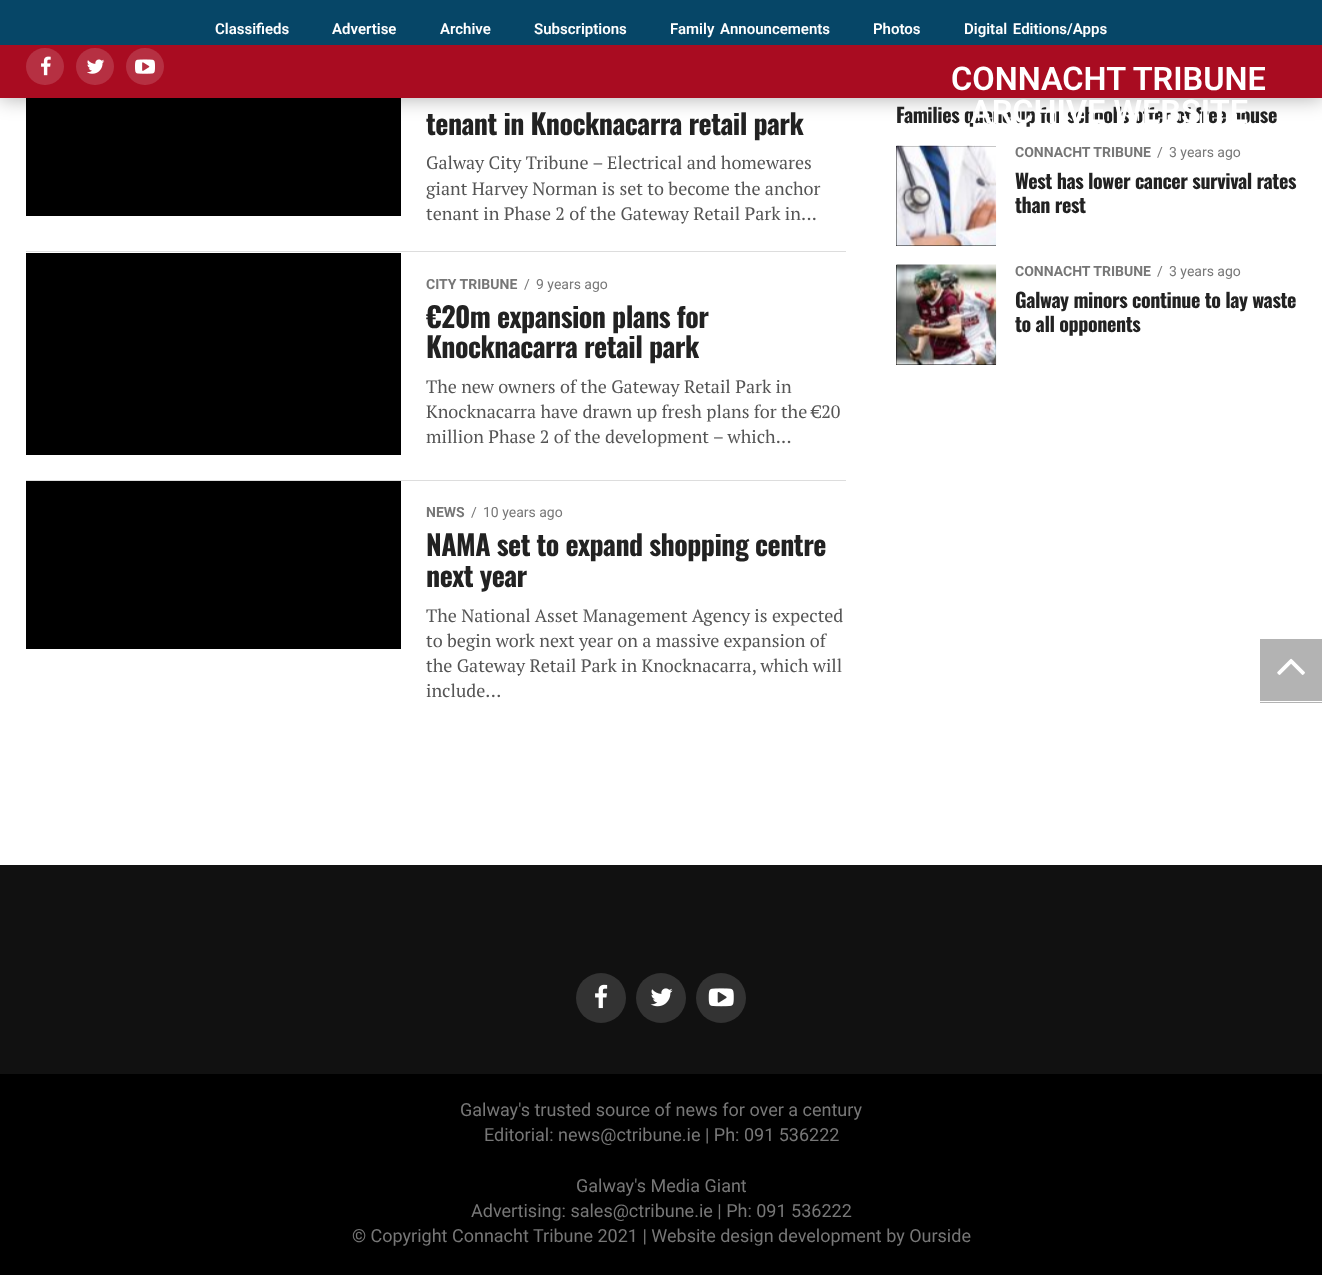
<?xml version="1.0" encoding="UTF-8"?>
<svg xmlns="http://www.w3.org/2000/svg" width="1322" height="1275">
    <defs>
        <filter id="blur1" x="-50%" y="-200%" width="200%" height="500%"><feGaussianBlur stdDeviation="10"/></filter>
    </defs>
    <rect width="100%" height="100%" fill="#FFFFFF"/>
    <rect x="26" y="98" width="375" height="118" fill="#000000"/>
    <rect x="0" y="36" width="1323" height="63" fill="#000000" fill-opacity="0.3" filter="url(#blur1)"/>
    <rect x="0" y="0" width="1322" height="45" fill="#064667"/>
    <text x="215" y="34" font-family="Roboto" font-size="15" font-weight="600" fill="#FFFFFF">Classifieds</text>
    <text x="332" y="34" font-family="Roboto" font-size="15" font-weight="600" fill="#FFFFFF">Advertise</text>
    <text x="440" y="34" font-family="Roboto" font-size="15" font-weight="600" fill="#FFFFFF">Archive</text>
    <text x="534" y="34" font-family="Roboto" font-size="15" font-weight="600" fill="#FFFFFF">Subscriptions</text>
    <text x="670" y="34" word-spacing="2" font-family="Roboto" font-size="15" font-weight="600" fill="#FFFFFF">Family Announcements</text>
    <text x="873" y="34" font-family="Roboto" font-size="15" font-weight="600" fill="#FFFFFF">Photos</text>
    <text x="964" y="34" word-spacing="2" font-family="Roboto" font-size="15" font-weight="600" fill="#FFFFFF">Digital Editions/Apps</text>
    <rect x="0" y="45" width="1322" height="53" fill="#A90C21"/>
    <rect x="26" y="48" width="38" height="37" rx="18.5" fill="#B63042"/>
    <image x="41" y="56" width="10" height="20" href="img_01.png"/>
    <rect x="76" y="48" width="38" height="37" rx="18.5" fill="#B63042"/>
    <image x="87" y="59" width="18" height="15" href="img_02.png"/>
    <rect x="126" y="48" width="38" height="37" rx="18.5" fill="#B63042"/>
    <image x="135" y="59" width="20" height="15" href="img_03.png"/>
    <text x="951" y="90" font-family="Roboto" font-size="32.5" font-weight="600" fill="#FFFFFF">CONNACHT TRIBUNE</text>
    <text x="896" y="123" font-family="Oswald" font-size="20" font-weight="700" letter-spacing="-0.4" fill="#222222">Families queue up for school’s offer of free house</text>
    <text x="970" y="123" font-family="Roboto" font-size="32.5" font-weight="600" fill="#FFFFFF">ARCHIVE WEBSITE</text>
    <text x="426" y="135" font-family="Oswald" font-size="28" font-weight="700" letter-spacing="-0.55" fill="#222222">tenant in Knocknacarra retail park</text>
    <text font-family="PT Serif" font-size="18" fill="#555555">
        <tspan x="426" y="169">Galway City Tribune – Electrical and homewares</tspan>
        <tspan x="426" y="195">giant Harvey Norman is set to become the anchor</tspan>
        <tspan x="426" y="220">tenant in Phase 2 of the Gateway Retail Park in...</tspan>
    </text>
    <rect x="26" y="251" width="820" height="1" fill="#DDDDDD"/>
    <rect x="26" y="253" width="375" height="202" fill="#000000"/>
    <text x="426" y="289" font-family="Roboto" font-size="14" font-weight="700" fill="#777777">CITY TRIBUNE</text>
    <text x="524" y="289" font-family="Roboto" font-size="14" fill="#777777">/</text>
    <text x="536" y="289" font-family="Roboto" font-size="14" fill="#777777">9 years ago</text>
    <text font-family="Oswald" font-size="28" font-weight="700" letter-spacing="-0.55" fill="#222222">
        <tspan x="426" y="328">€20m expansion plans for</tspan>
        <tspan x="426" y="358">Knocknacarra retail park</tspan>
    </text>
    <text font-family="PT Serif" font-size="18" fill="#555555">
        <tspan x="426" y="393">The new owners of the Gateway Retail Park in</tspan>
        <tspan x="426" y="418">Knocknacarra have drawn up fresh plans for the €20</tspan>
        <tspan x="426" y="443">million Phase 2 of the development – which...</tspan>
    </text>
    <rect x="26" y="480" width="820" height="1" fill="#DDDDDD"/>
    <rect x="26" y="481" width="375" height="168" fill="#000000"/>
    <text x="426" y="517" font-family="Roboto" font-size="14" font-weight="700" fill="#777777">NEWS</text>
    <text x="471" y="517" font-family="Roboto" font-size="14" fill="#777777">/</text>
    <text x="483" y="517" font-family="Roboto" font-size="14" fill="#777777">10 years ago</text>
    <text font-family="Oswald" font-size="28" font-weight="700" letter-spacing="-0.55" fill="#222222">
        <tspan x="426" y="556">NAMA set to expand shopping centre</tspan>
        <tspan x="426" y="587">next year</tspan>
    </text>
    <text font-family="PT Serif" font-size="18" fill="#555555">
        <tspan x="426" y="622">The National Asset Management Agency is expected</tspan>
        <tspan x="426" y="647">to begin work next year on a massive expansion of</tspan>
        <tspan x="426" y="672">the Gateway Retail Park in Knocknacarra, which will</tspan>
        <tspan x="426" y="697">include...</tspan>
    </text>
    <rect x="896" y="146" width="100" height="100" fill="#000000"/>
    <image x="896" y="145" width="101" height="102" href="img_04.png"/>
    <text x="1015" y="157" font-family="Roboto" font-size="14" font-weight="700" fill="#777777">CONNACHT TRIBUNE</text>
    <text x="1157" y="157" font-family="Roboto" font-size="14" fill="#777777">/</text>
    <text x="1169" y="157" font-family="Roboto" font-size="14" fill="#777777">3 years ago</text>
    <text font-family="Oswald" font-size="20" font-weight="700" letter-spacing="-0.4" fill="#222222">
        <tspan x="1015" y="189">West has lower cancer survival rates</tspan>
        <tspan x="1015" y="213">than rest</tspan>
    </text>
    <rect x="896" y="265" width="100" height="100" fill="#000000"/>
    <image x="896" y="264" width="101" height="101" href="img_05.png"/>
    <text x="1015" y="276" font-family="Roboto" font-size="14" font-weight="700" fill="#777777">CONNACHT TRIBUNE</text>
    <text x="1157" y="276" font-family="Roboto" font-size="14" fill="#777777">/</text>
    <text x="1169" y="276" font-family="Roboto" font-size="14" fill="#777777">3 years ago</text>
    <text font-family="Oswald" font-size="20" font-weight="700" letter-spacing="-0.4" fill="#222222">
        <tspan x="1015" y="308">Galway minors continue to lay waste</tspan>
        <tspan x="1015" y="332">to all opponents</tspan>
    </text>
    <rect x="0" y="865" width="1322" height="209" fill="#111111"/>
    <circle cx="601" cy="998" r="25" fill="#333333"/>
    <image x="595" y="984" width="13" height="25" href="img_06.png"/>
    <circle cx="661" cy="998" r="25" fill="#333333"/>
    <image x="650" y="988" width="23" height="19" href="img_07.png"/>
    <circle cx="721" cy="998" r="25" fill="#333333"/>
    <image x="708" y="988" width="26" height="19" href="img_08.png"/>
    <rect x="0" y="1074" width="1322" height="201" fill="#000000"/>
    <text x="460" y="1116" font-family="Roboto" font-size="18" fill="#777777">Galway's trusted source of news for over a century</text>
    <text x="484" y="1141" font-family="Roboto" font-size="18" fill="#777777">Editorial: news@ctribune.ie | Ph: 091 536222</text>
    <text x="576" y="1192" font-family="Roboto" font-size="18" fill="#777777">Galway's Media Giant</text>
    <text x="471" y="1217" font-family="Roboto" font-size="18" fill="#777777">Advertising: sales@ctribune.ie | Ph: 091 536222</text>
    <text x="352" y="1242" font-family="Roboto" font-size="18" fill="#777777">© Copyright Connacht Tribune 2021 | Website design development by Ourside</text>
    <rect x="1260" y="639" width="62" height="64" fill="#B3B3B3"/>
    <rect x="1259" y="701" width="63" height="1" fill="#FFFFFF"/>
    <image x="1277" y="658" width="28" height="17" href="img_09.png"/>
</svg>
